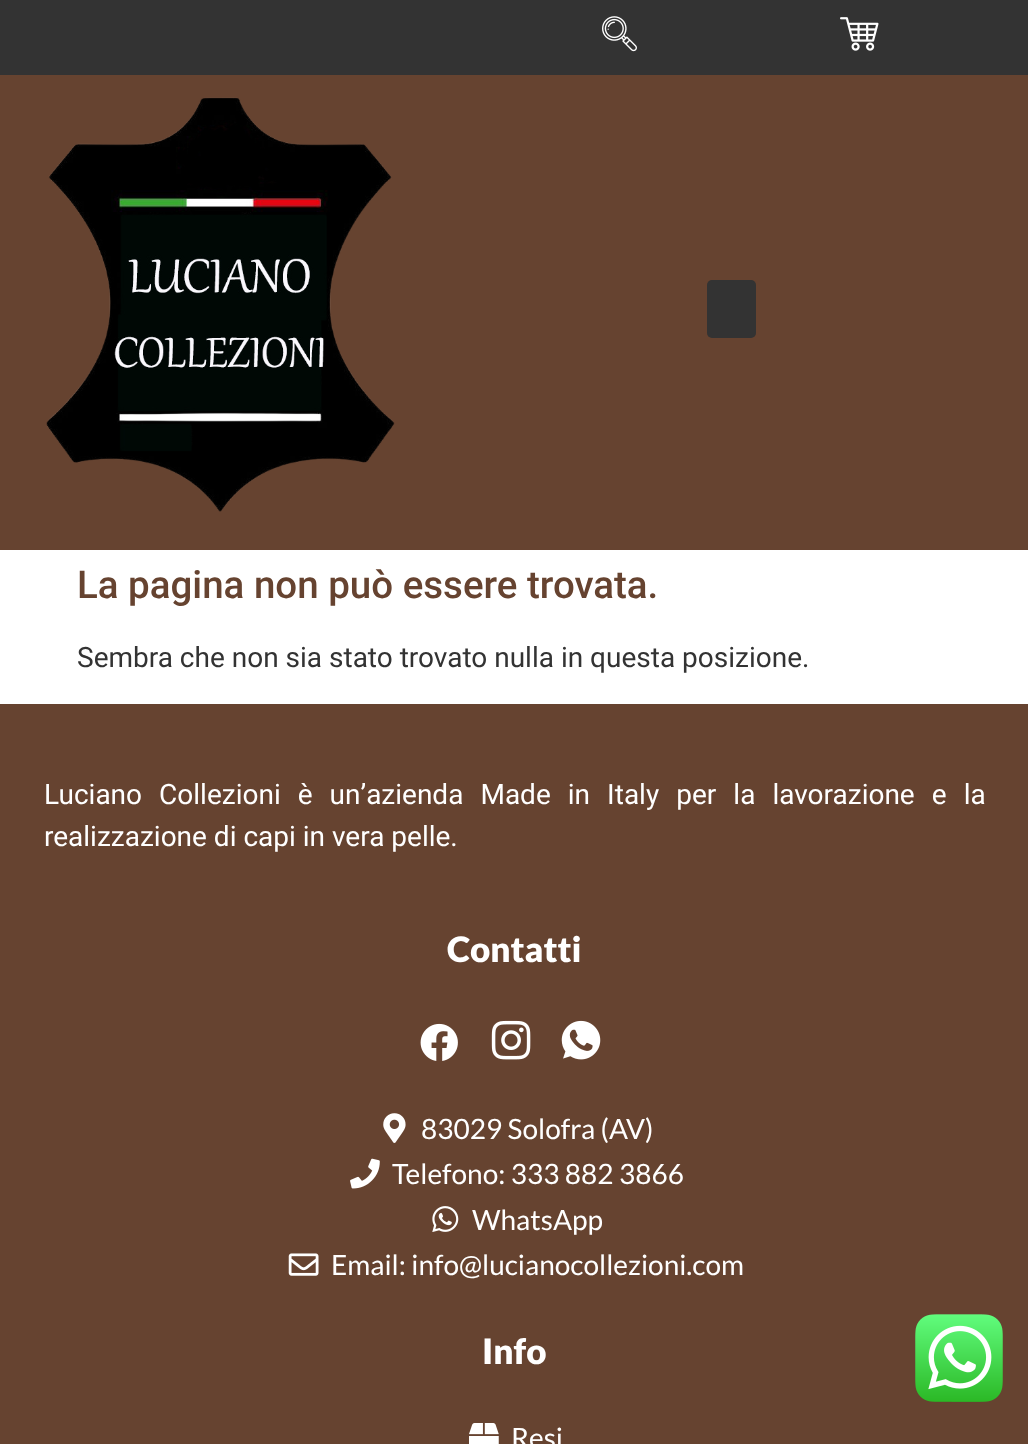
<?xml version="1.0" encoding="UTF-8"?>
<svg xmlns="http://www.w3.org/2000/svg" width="1028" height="1444">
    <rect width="100%" height="100%" fill="#FFFFFF"/>
    <rect x="0" y="0" width="1028" height="75" fill="#333333"/>
    <image x="602" y="16" width="35" height="36" href="img_01.png"/>
    <image x="840" y="17" width="39" height="34" href="img_02.png"/>
    <rect x="0" y="75" width="1028" height="475" fill="#664330"/>
    <image x="46" y="97" width="349" height="415" href="img_03.png"/>
    <rect x="707" y="280" width="49" height="58" rx="5" fill="#333333"/>
    <text x="77" y="598" font-family="Roboto" font-size="38.5" font-weight="500" fill="#664330">La pagina non può essere trovata.</text>
    <text x="77" y="667" font-family="Roboto" font-size="28" fill="#333333">Sembra che non sia stato trovato nulla in questa posizione.</text>
    <rect x="0" y="704" width="1028" height="740" fill="#664330"/>
    <text font-family="Roboto" font-size="28" fill="#FFFFFF">
        <tspan x="44" y="804" word-spacing="10.1">Luciano Collezioni è un’azienda Made in Italy per la lavorazione e la</tspan>
        <tspan x="44" y="846">realizzazione di capi in vera pelle.</tspan>
    </text>
    <text x="447" y="962" font-family="Lato" font-size="35" font-weight="900" fill="#FFFFFF">Contatti</text>
    <image x="420" y="1023" width="38" height="38" href="img_04.png"/>
    <image x="491" y="1020" width="40" height="40" href="img_05.png"/>
    <image x="561" y="1020" width="40" height="40" href="img_06.png"/>
    <image x="383" y="1113" width="23" height="30" href="img_07.png"/>
    <text x="421" y="1139" font-family="Lato" font-size="28" fill="#FFFFFF">83029 Solofra (AV)</text>
    <image x="350" y="1158" width="30" height="31" href="img_08.png"/>
    <text x="392" y="1184" font-family="Lato" font-size="28" fill="#FFFFFF">Telefono: 333 882 3866</text>
    <image x="432" y="1206" width="27" height="26" href="img_09.png"/>
    <text x="472" y="1230" font-family="Lato" font-size="28" fill="#FFFFFF">WhatsApp</text>
    <image x="288" y="1253" width="31" height="23" href="img_10.png"/>
    <text x="331" y="1275" font-family="Lato" font-size="28" fill="#FFFFFF">Email: info@lucianocollezioni.com</text>
    <text x="482" y="1364" font-family="Lato" font-size="35" font-weight="900" fill="#FFFFFF">Info</text>
    <image x="469" y="1423" width="30" height="21" href="img_11.png"/>
    <text x="511" y="1448" font-family="Lato" font-size="28" fill="#FFFFFF">Resi</text>
    <image x="915" y="1314" width="88" height="88" href="img_12.png"/>
</svg>
